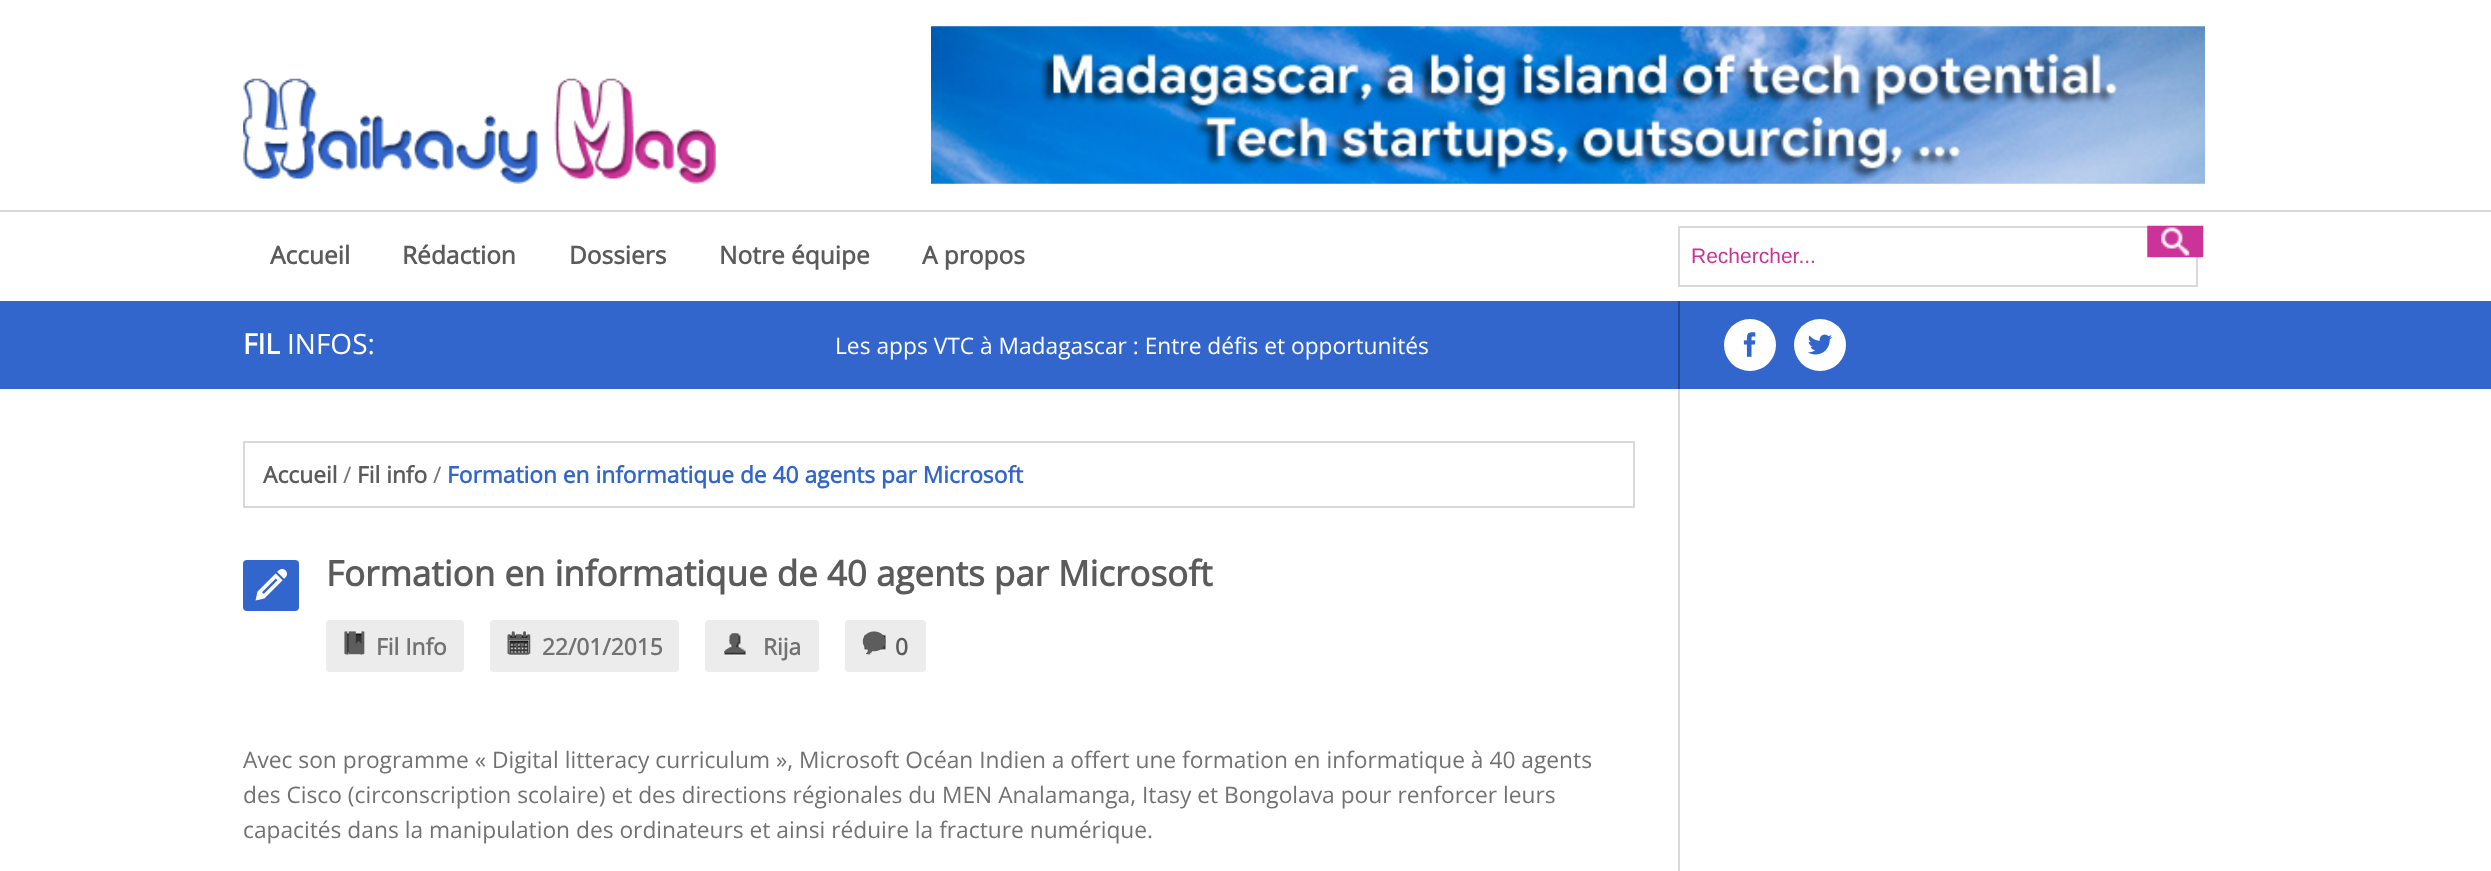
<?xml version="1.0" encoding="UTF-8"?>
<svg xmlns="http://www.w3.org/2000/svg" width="2491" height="871">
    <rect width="100%" height="100%" fill="#FFFFFF"/>
    <image x="243" y="78" width="473" height="106" href="img_01.png"/>
    <image x="931" y="26" width="1274" height="158" href="img_02.png"/>
    <rect x="0" y="210" width="2491" height="2" fill="#D9D9D9"/>
    <text x="270" y="264" font-family="Open Sans" font-size="24.5" font-weight="700" fill="#5B5B5B">Accueil</text>
    <text x="402" y="264" font-family="Open Sans" font-size="24.5" font-weight="700" fill="#5B5B5B">Rédaction</text>
    <text x="569" y="264" font-family="Open Sans" font-size="24.5" font-weight="700" fill="#5B5B5B">Dossiers</text>
    <text x="719" y="264" font-family="Open Sans" font-size="24.5" font-weight="700" fill="#5B5B5B">Notre équipe</text>
    <text x="922" y="264" font-family="Open Sans" font-size="24.5" font-weight="700" fill="#5B5B5B">A propos</text>
    <rect x="1679" y="227" width="518" height="59" fill="none" stroke="#D9D9D9" stroke-width="2"/>
    <text x="1691" y="263" font-family="Liberation Sans" font-size="21" fill="#CB3398">Rechercher...</text>
    <image x="2147" y="225" width="57" height="33" href="img_03.png"/>
    <rect x="0" y="301" width="2491" height="88" fill="#3366CC"/>
    <rect x="1678" y="301" width="2" height="88" fill="#24478F"/>
    <text x="243" y="354" font-family="Open Sans" font-size="28" font-weight="700" fill="#FFFFFF">FIL</text>
    <text x="287" y="354" font-family="Open Sans" font-size="28" fill="#FFFFFF">INFOS:</text>
    <text x="835" y="354" font-family="Open Sans" font-size="22.75" fill="#FFFFFF">Les apps VTC à Madagascar : Entre défis et opportunités</text>
    <circle cx="1750" cy="345" r="26" fill="#FFFFFF"/>
    <image x="1743" y="332" width="13" height="25" href="img_04.png"/>
    <circle cx="1820" cy="345" r="26" fill="#FFFFFF"/>
    <image x="1808" y="334" width="25" height="21" href="img_05.png"/>
    <rect x="1678" y="389" width="2" height="482" fill="#D9D9D9"/>
    <rect x="244" y="442" width="1390" height="65" fill="none" stroke="#D9D9D9" stroke-width="2"/>
    <text x="263" y="483" font-family="Open Sans" font-size="22.75" font-weight="700" fill="#5B5B5B">Accueil</text>
    <text x="343" y="483" font-family="Open Sans" font-size="22.75" fill="#727272">/</text>
    <text x="357" y="483" font-family="Open Sans" font-size="22.75" font-weight="700" fill="#5B5B5B">Fil info</text>
    <text x="433" y="483" font-family="Open Sans" font-size="22.75" fill="#727272">/</text>
    <text x="447" y="483" font-family="Open Sans" font-size="22.75" font-weight="700" fill="#3366CC">Formation en informatique de 40 agents par Microsoft</text>
    <rect x="243" y="560" width="56" height="51" rx="4" fill="#3366CC"/>
    <image x="255" y="569" width="32" height="32" href="img_06.png"/>
    <text x="326" y="586" font-family="Open Sans" font-size="35" font-weight="700" fill="#5B5B5B">Formation en informatique de 40 agents par Microsoft</text>
    <rect x="326" y="620" width="138" height="52" rx="4" fill="#ECECEC"/>
    <image x="346" y="633" width="17" height="23" href="img_07.png"/>
    <image x="344" y="631" width="21" height="24" href="img_08.png"/>
    <text x="376" y="655" font-family="Open Sans" font-size="22.75" font-weight="700" fill="#727272">Fil Info</text>
    <rect x="490" y="620" width="189" height="52" rx="4" fill="#ECECEC"/>
    <image x="508" y="633" width="21" height="23" href="img_09.png"/>
    <image x="507" y="631" width="24" height="24" href="img_10.png"/>
    <text x="542" y="655" font-family="Open Sans" font-size="22.75" font-weight="700" fill="#727272">22/01/2015</text>
    <rect x="705" y="620" width="114" height="52" rx="4" fill="#ECECEC"/>
    <image x="724" y="633" width="22" height="23" href="img_11.png"/>
    <image x="724" y="633" width="20" height="20" href="img_12.png"/>
    <text x="763" y="655" font-family="Open Sans" font-size="22.75" font-weight="700" fill="#727272">Rija</text>
    <rect x="845" y="620" width="81" height="52" rx="4" fill="#ECECEC"/>
    <image x="864" y="634" width="22" height="21" href="img_13.png"/>
    <image x="862" y="631" width="24" height="24" href="img_14.png"/>
    <text x="895" y="655" font-family="Open Sans" font-size="22.75" font-weight="700" fill="#5B5B5B">0</text>
    <text font-family="Open Sans" font-size="22.75" fill="#727272">
        <tspan x="243" y="768">Avec son programme « Digital litteracy curriculum », Microsoft Océan Indien a offert une formation en informatique à 40 agents</tspan>
        <tspan x="243" y="803">des Cisco (circonscription scolaire) et des directions régionales du MEN Analamanga, Itasy et Bongolava pour renforcer leurs</tspan>
        <tspan x="243" y="838">capacités dans la manipulation des ordinateurs et ainsi réduire la fracture numérique.</tspan>
    </text>
</svg>
